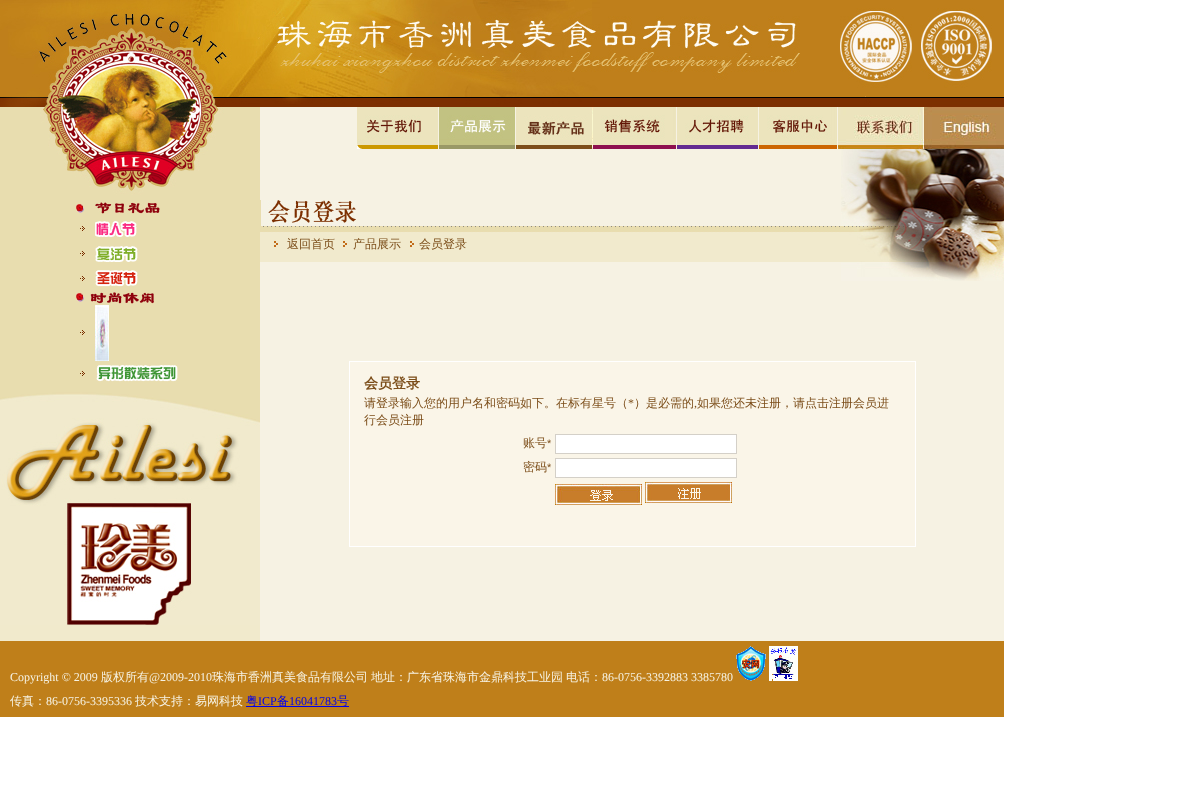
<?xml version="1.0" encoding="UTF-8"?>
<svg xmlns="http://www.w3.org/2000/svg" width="1179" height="789">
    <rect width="100%" height="100%" fill="#FFFFFF"/>
    <image x="0" y="0" width="1004" height="107" href="img_01.png"/>
    <image x="0" y="107" width="260" height="95" href="img_02.png"/>
    <rect x="0" y="202" width="260" height="184" fill="#E8DDAF"/>
    <image x="76" y="203" width="8" height="10" href="img_03.png"/>
    <image x="95" y="202" width="65" height="12" href="img_04.png"/>
    <image x="80" y="226" width="5" height="5" href="img_05.png"/>
    <image x="95" y="221" width="42" height="16" href="img_06.png"/>
    <image x="80" y="251" width="5" height="5" href="img_05.png"/>
    <image x="95" y="246" width="43" height="16" href="img_07.png"/>
    <image x="80" y="276" width="5" height="5" href="img_05.png"/>
    <image x="95" y="270" width="43" height="17" href="img_08.png"/>
    <image x="76" y="292" width="8" height="10" href="img_03.png"/>
    <image x="90" y="292" width="64" height="12" href="img_09.png"/>
    <image x="80" y="330" width="5" height="5" href="img_05.png"/>
    <image x="95" y="305" width="14" height="56" href="img_10.png"/>
    <image x="80" y="371" width="5" height="5" href="img_05.png"/>
    <image x="96" y="365" width="82" height="17" href="img_11.png"/>
    <image x="0" y="386" width="260" height="239" href="img_12.png"/>
    <rect x="0" y="625" width="260" height="16" fill="#F1EACC"/>
    <rect x="260" y="107" width="744" height="534" fill="#F6F2E3"/>
    <image x="357" y="107" width="81" height="42" href="img_13.png"/>
    <image x="439" y="107" width="76" height="42" href="img_14.png"/>
    <image x="516" y="107" width="77" height="42" href="img_15.png"/>
    <image x="593" y="107" width="83" height="42" href="img_16.png"/>
    <image x="677" y="107" width="81" height="42" href="img_17.png"/>
    <image x="759" y="107" width="78" height="42" href="img_18.png"/>
    <image x="838" y="107" width="86" height="42" href="img_19.png"/>
    <image x="924" y="107" width="80" height="42" href="img_20.png"/>
    <image x="260" y="200" width="96" height="26" href="img_21.png"/>
    <image x="260" y="226" width="581" height="36" href="img_22.png"/>
    <image x="274" y="241" width="4" height="6" href="img_23.png"/>
    <text x="287" y="248" font-family="WenQuanYi Zen Hei" font-size="12" font-weight="500" fill="#7C4E1A">返回首页</text>
    <image x="343" y="241" width="4" height="6" href="img_23.png"/>
    <text x="353" y="248" font-family="WenQuanYi Zen Hei" font-size="12" font-weight="500" fill="#7C4E1A">产品展示</text>
    <image x="410" y="241" width="4" height="6" href="img_23.png"/>
    <text x="419" y="248" font-family="WenQuanYi Zen Hei" font-size="12" font-weight="500" fill="#7C4E1A">会员登录</text>
    <image x="841" y="149" width="163" height="132" href="img_24.png"/>
    <rect x="349.5" y="361.5" width="566" height="185" fill="#FAF5E8" stroke="#FFFFFF"/>
    <text x="364" y="388" font-family="WenQuanYi Zen Hei" font-size="14" font-weight="700" fill="#7C4E1A">会员登录</text>
    <text x="364" y="407" font-family="WenQuanYi Zen Hei" font-size="12" font-weight="500" fill="#7C4E1A">请登录输入您的用户名和密码如下。在标有星号（</text>
    <text x="628" y="407" font-family="Liberation Serif" font-size="12" fill="#7C4E1A">*</text>
    <text x="634" y="407" font-family="WenQuanYi Zen Hei" font-size="12" font-weight="500" fill="#7C4E1A">）是必需的</text>
    <text x="697" y="407" font-family="WenQuanYi Zen Hei" font-size="12" font-weight="500" fill="#7C4E1A">如果您还未注册，请点击注册会员进</text>
    <text x="694" y="407" font-family="Liberation Serif" font-size="12" fill="#7C4E1A">,</text>
    <text x="364" y="424" font-family="WenQuanYi Zen Hei" font-size="12" font-weight="500" fill="#7C4E1A">行会员注册</text>
    <text x="523" y="447" font-family="WenQuanYi Zen Hei" font-size="12" font-weight="500" fill="#7C4E1A">账号</text>
    <text x="547" y="447" font-family="Liberation Sans" font-size="11" fill="#7C4E1A">*</text>
    <rect x="555.5" y="434.5" width="181" height="19" fill="#FFFFFF" stroke="#D4D0C8"/>
    <text x="523" y="471" font-family="WenQuanYi Zen Hei" font-size="12" font-weight="500" fill="#7C4E1A">密码</text>
    <text x="547" y="471" font-family="Liberation Sans" font-size="11" fill="#7C4E1A">*</text>
    <rect x="555.5" y="458.5" width="181" height="19" fill="#FFFFFF" stroke="#D4D0C8"/>
    <image x="555" y="484" width="87" height="21" href="img_25.png"/>
    <image x="645" y="482" width="87" height="21" href="img_26.png"/>
    <rect x="0" y="641" width="1004" height="76" fill="#BF7F1A"/>
    <text x="10" y="681" font-family="Liberation Serif" font-size="12" fill="#F6F2E3">Copyright © 2009</text>
    <text x="101" y="681" font-family="WenQuanYi Zen Hei" font-size="12" font-weight="500" fill="#F6F2E3">版权所有</text>
    <text x="149" y="681" font-family="Liberation Serif" font-size="12" fill="#F6F2E3">@2009-2010</text>
    <text x="212" y="681" font-family="WenQuanYi Zen Hei" font-size="12" font-weight="500" fill="#F6F2E3">珠海市香洲真美食品有限公司</text>
    <text x="371" y="681" font-family="WenQuanYi Zen Hei" font-size="12" font-weight="500" fill="#F6F2E3">地址：广东省珠海市金鼎科技工业园</text>
    <text x="566" y="681" font-family="WenQuanYi Zen Hei" font-size="12" font-weight="500" fill="#F6F2E3">电话：</text>
    <text x="602" y="681" font-family="Liberation Serif" font-size="12" fill="#F6F2E3">86-0756-3392883 3385780</text>
    <image x="736" y="646" width="30" height="35" href="img_27.png"/>
    <image x="769" y="646" width="29" height="35" href="img_28.png"/>
    <text x="10" y="705" font-family="WenQuanYi Zen Hei" font-size="12" font-weight="500" fill="#F6F2E3">传真：</text>
    <text x="46" y="705" font-family="Liberation Serif" font-size="12" fill="#F6F2E3">86-0756-3395336</text>
    <text x="135" y="705" font-family="WenQuanYi Zen Hei" font-size="12" font-weight="500" fill="#F6F2E3">技术支持：易网科技</text>
    <rect x="246" y="706" width="103" height="1" fill="#0000EE"/>
    <text x="246" y="705" font-family="WenQuanYi Zen Hei" font-size="12" font-weight="500" fill="#0000EE">粤</text>
    <text x="258" y="705" font-family="Liberation Serif" font-size="12" fill="#0000EE">ICP</text>
    <text x="277" y="705" font-family="WenQuanYi Zen Hei" font-size="12" font-weight="500" fill="#0000EE">备</text>
    <text x="289" y="705" font-family="Liberation Serif" font-size="12" fill="#0000EE">16041783</text>
    <text x="337" y="705" font-family="WenQuanYi Zen Hei" font-size="12" font-weight="500" fill="#0000EE">号</text>
</svg>
